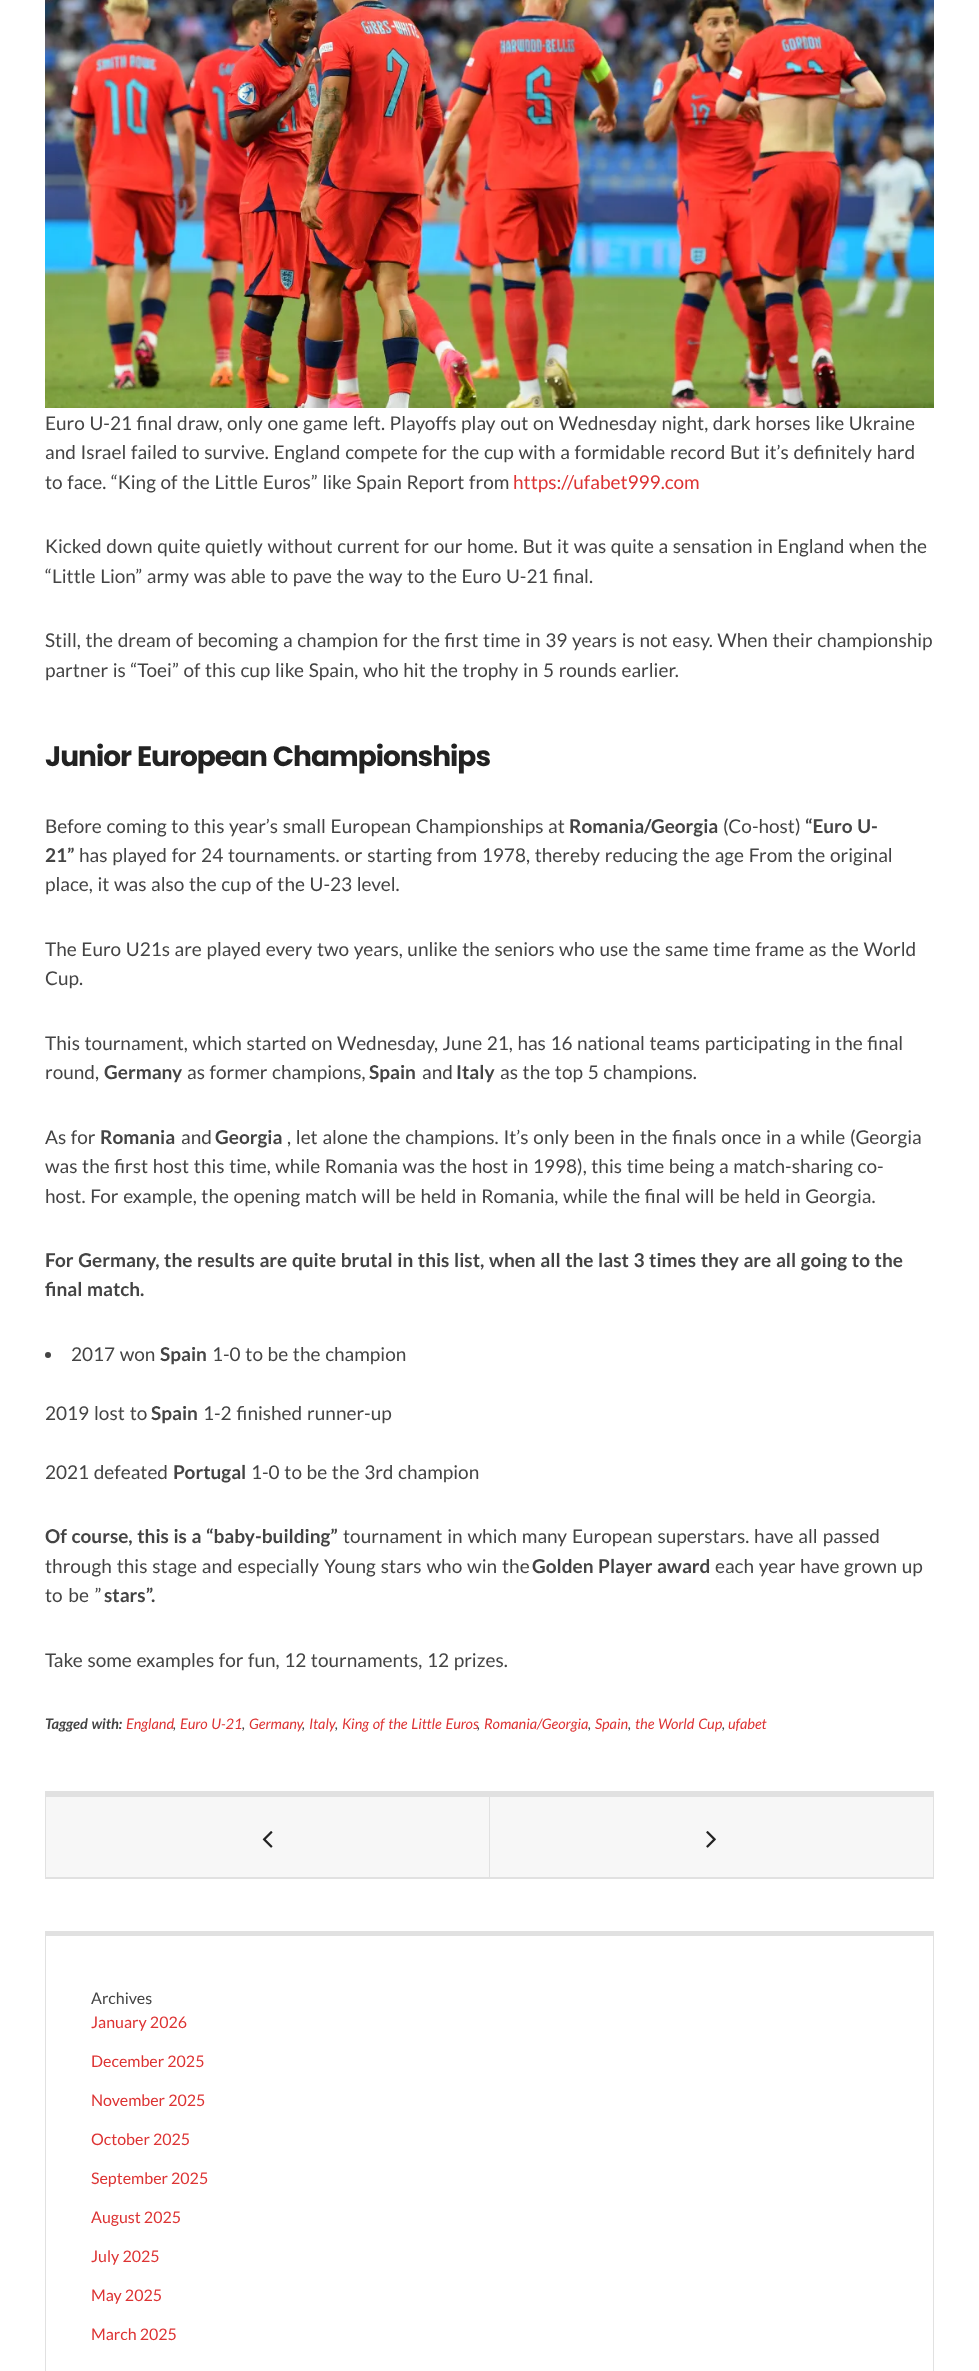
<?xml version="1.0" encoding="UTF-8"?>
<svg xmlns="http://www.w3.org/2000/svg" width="979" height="2371">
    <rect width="100%" height="100%" fill="#FFFFFF"/>
    <image x="45" y="0" width="889" height="408" href="img_01.png"/>
    <text font-family="Lato" font-size="19" fill="#444444">
        <tspan x="45" y="430" word-spacing="0.95">Euro U-21 final draw, only one game left. Playoffs play out on Wednesday night, dark horses like Ukraine</tspan>
        <tspan x="45" y="459" word-spacing="1">and Israel failed to survive. England compete for the cup with a formidable record But it’s definitely hard</tspan>
        <tspan x="45" y="489" word-spacing="1">to face. “King of the Little Euros” like Spain Report from</tspan>
    </text>
    <text x="513" y="489" font-family="Lato" font-size="19" fill="#DD3333">https://ufabet999.com</text>
    <text font-family="Lato" font-size="19" fill="#444444">
        <tspan x="45" y="553" word-spacing="1">Kicked down quite quietly without current for our home. But it was quite a sensation in England when the</tspan>
        <tspan x="45" y="583" word-spacing="0.95">“Little Lion” army was able to pave the way to the Euro U-21 final.</tspan>
    </text>
    <text font-family="Lato" font-size="19" fill="#444444">
        <tspan x="45" y="647" word-spacing="1">Still, the dream of becoming a champion for the first time in 39 years is not easy. When their championship</tspan>
        <tspan x="45" y="677" word-spacing="0.95">partner is “Toei” of this cup like Spain, who hit the trophy in 5 rounds earlier.</tspan>
    </text>
    <text x="45" y="766" word-spacing="0.95" font-family="Poppins" font-size="28" font-weight="700" letter-spacing="-1" fill="#222222">Junior European Championships</text>
    <text x="45" y="833" word-spacing="1" font-family="Lato" font-size="19" fill="#444444">Before coming to this year’s small European Championships at</text>
    <text x="569" y="833" font-family="Lato" font-size="19" font-weight="700" fill="#444444">Romania/Georgia</text>
    <text x="723" y="833" font-family="Lato" font-size="19" fill="#444444">(Co-host)</text>
    <text x="805" y="833" word-spacing="0.95" font-family="Lato" font-size="19" font-weight="700" fill="#444444">“Euro U-</text>
    <text x="45" y="862" font-family="Lato" font-size="19" font-weight="700" fill="#444444">21”</text>
    <text x="79" y="862" word-spacing="1.1" font-family="Lato" font-size="19" fill="#444444">has played for 24 tournaments. or starting from 1978, thereby reducing the age From the original</text>
    <text x="45" y="891" word-spacing="0.95" font-family="Lato" font-size="19" fill="#444444">place, it was also the cup of the U-23 level.</text>
    <text font-family="Lato" font-size="19" fill="#444444">
        <tspan x="45" y="956" word-spacing="0.95">The Euro U21s are played every two years, unlike the seniors who use the same time frame as the World</tspan>
        <tspan x="45" y="985">Cup.</tspan>
    </text>
    <text font-family="Lato" font-size="19" fill="#444444">
        <tspan x="45" y="1050" word-spacing="0.95">This tournament, which started on Wednesday, June 21, has 16 national teams participating in the final</tspan>
        <tspan x="45" y="1079">round,</tspan>
    </text>
    <text x="104" y="1079" font-family="Lato" font-size="19" font-weight="700" fill="#444444">Germany</text>
    <text x="187" y="1079" word-spacing="1" font-family="Lato" font-size="19" fill="#444444">as former champions,</text>
    <text x="369" y="1079" font-family="Lato" font-size="19" font-weight="700" fill="#444444">Spain</text>
    <text x="422" y="1079" font-family="Lato" font-size="19" fill="#444444">and</text>
    <text x="456" y="1079" font-family="Lato" font-size="19" font-weight="700" fill="#444444">Italy</text>
    <text x="500" y="1079" word-spacing="1" font-family="Lato" font-size="19" fill="#444444">as the top 5 champions.</text>
    <text x="45" y="1144" word-spacing="1" font-family="Lato" font-size="19" fill="#444444">As for</text>
    <text x="100" y="1144" font-family="Lato" font-size="19" font-weight="700" fill="#444444">Romania</text>
    <text x="181" y="1144" font-family="Lato" font-size="19" fill="#444444">and</text>
    <text x="215" y="1144" font-family="Lato" font-size="19" font-weight="700" fill="#444444">Georgia</text>
    <text x="287" y="1144" word-spacing="1.1" font-family="Lato" font-size="19" fill="#444444">, let alone the champions. It’s only been in the finals once in a while (Georgia</text>
    <text font-family="Lato" font-size="19" fill="#444444">
        <tspan x="45" y="1173" word-spacing="0.95">was the first host this time, while Romania was the host in 1998), this time being a match-sharing co-</tspan>
        <tspan x="45" y="1203" word-spacing="1">host. For example, the opening match will be held in Romania, while the final will be held in Georgia.</tspan>
    </text>
    <text font-family="Lato" font-size="19" font-weight="700" fill="#444444">
        <tspan x="45" y="1267" word-spacing="0.95">For Germany, the results are quite brutal in this list, when all the last 3 times they are all going to the</tspan>
        <tspan x="45" y="1296" word-spacing="0.95">final match.</tspan>
    </text>
    <circle cx="48" cy="1355" r="3" fill="#444444"/>
    <text x="71" y="1361" word-spacing="1" font-family="Lato" font-size="19" fill="#444444">2017 won</text>
    <text x="160" y="1361" font-family="Lato" font-size="19" font-weight="700" fill="#444444">Spain</text>
    <text x="212" y="1361" word-spacing="1" font-family="Lato" font-size="19" fill="#444444">1-0 to be the champion</text>
    <text x="45" y="1420" word-spacing="1.25" font-family="Lato" font-size="19" fill="#444444">2019 lost to</text>
    <text x="151" y="1420" font-family="Lato" font-size="19" font-weight="700" fill="#444444">Spain</text>
    <text x="203" y="1420" word-spacing="1.25" font-family="Lato" font-size="19" fill="#444444">1-2 finished runner-up</text>
    <text x="45" y="1479" word-spacing="1" font-family="Lato" font-size="19" fill="#444444">2021 defeated</text>
    <text x="173" y="1479" font-family="Lato" font-size="19" font-weight="700" fill="#444444">Portugal</text>
    <text x="251" y="1479" word-spacing="1" font-family="Lato" font-size="19" fill="#444444">1-0 to be the 3rd champion</text>
    <text x="45" y="1543" word-spacing="0.95" font-family="Lato" font-size="19" font-weight="700" fill="#444444">Of course, this is a “baby-building”</text>
    <text x="343" y="1543" word-spacing="1.25" font-family="Lato" font-size="19" fill="#444444">tournament in which many European superstars. have all passed</text>
    <text x="45" y="1573" word-spacing="1.25" font-family="Lato" font-size="19" fill="#444444">through this stage and especially Young stars who win the</text>
    <text x="532" y="1573" word-spacing="0.95" font-family="Lato" font-size="19" font-weight="700" fill="#444444">Golden Player award</text>
    <text x="715" y="1573" word-spacing="1" font-family="Lato" font-size="19" fill="#444444">each year have grown up</text>
    <text x="45" y="1602" word-spacing="2" font-family="Lato" font-size="19" fill="#444444">to be ”</text>
    <text x="104" y="1602" font-family="Lato" font-size="19" font-weight="700" fill="#444444">stars”.</text>
    <text x="45" y="1667" word-spacing="0.95" font-family="Lato" font-size="19" fill="#444444">Take some examples for fun, 12 tournaments, 12 prizes.</text>
    <text x="45" y="1729" word-spacing="0.95" font-family="Lato" font-size="14.5" font-weight="700" font-style="italic" fill="#444444">Tagged with:</text>
    <text x="126" y="1729" font-family="Lato" font-size="14.5" font-style="italic" fill="#DD3333">England</text>
    <text x="173" y="1729" font-family="Lato" font-size="14.5" font-style="italic" fill="#444444">,</text>
    <text x="180" y="1729" word-spacing="0.95" font-family="Lato" font-size="14.5" font-style="italic" fill="#DD3333">Euro U-21</text>
    <text x="242" y="1729" font-family="Lato" font-size="14.5" font-style="italic" fill="#444444">,</text>
    <text x="249" y="1729" font-family="Lato" font-size="14.5" font-style="italic" fill="#DD3333">Germany</text>
    <text x="309" y="1729" font-family="Lato" font-size="14.5" font-style="italic" fill="#DD3333">Italy</text>
    <text x="342" y="1729" word-spacing="0.95" font-family="Lato" font-size="14.5" font-style="italic" fill="#DD3333">King of the Little Euros</text>
    <text x="484" y="1729" font-family="Lato" font-size="14.5" font-style="italic" fill="#DD3333">Romania/Georgia</text>
    <text x="595" y="1729" font-family="Lato" font-size="14.5" font-style="italic" fill="#DD3333">Spain</text>
    <text x="635" y="1729" word-spacing="0.95" font-family="Lato" font-size="14.5" font-style="italic" fill="#DD3333">the World Cup</text>
    <text x="728" y="1729" font-family="Lato" font-size="14.5" font-style="italic" fill="#DD3333">ufabet</text>
    <text x="302" y="1729" font-family="Lato" font-size="14.5" font-style="italic" fill="#444444">,</text>
    <text x="335" y="1729" font-family="Lato" font-size="14.5" font-style="italic" fill="#444444">,</text>
    <text x="477" y="1729" font-family="Lato" font-size="14.5" font-style="italic" fill="#444444">,</text>
    <text x="588" y="1729" font-family="Lato" font-size="14.5" font-style="italic" fill="#444444">,</text>
    <text x="628" y="1729" font-family="Lato" font-size="14.5" font-style="italic" fill="#444444">,</text>
    <text x="722" y="1729" font-family="Lato" font-size="14.5" font-style="italic" fill="#444444">,</text>
    <rect x="45" y="1791" width="889" height="5" fill="#E1E1E1"/>
    <rect x="933" y="1791" width="1" height="88" fill="#E1E1E1"/>
    <rect x="45" y="1878" width="889" height="1" fill="#E1E1E1"/>
    <rect x="45" y="1791" width="1" height="88" fill="#E1E1E1"/>
    <rect x="46" y="1877" width="887" height="1" fill="#E1E1E1"/>
    <rect x="46" y="1796" width="887" height="1" fill="#E1E1E1"/>
    <rect x="46" y="1797" width="443" height="80" fill="#F7F7F7"/>
    <rect x="489" y="1797" width="1" height="80" fill="#E1E1E1"/>
    <image x="262" y="1831" width="11" height="17" href="img_02.png"/>
    <rect x="490" y="1797" width="443" height="80" fill="#F7F7F7"/>
    <image x="706" y="1831" width="10" height="17" href="img_03.png"/>
    <rect x="45" y="1931" width="889" height="5" fill="#E1E1E1"/>
    <rect x="933" y="1931" width="1" height="440" fill="#E1E1E1"/>
    <rect x="45" y="1931" width="1" height="440" fill="#E1E1E1"/>
    <text x="91" y="2004" font-family="Lato" font-size="16" fill="#444444">Archives</text>
    <text x="91" y="2028" font-family="Lato" font-size="16" fill="#DD3333">January 2026</text>
    <text x="91" y="2067" font-family="Lato" font-size="16" fill="#DD3333">December 2025</text>
    <text x="91" y="2106" font-family="Lato" font-size="16" fill="#DD3333">November 2025</text>
    <text x="91" y="2145" font-family="Lato" font-size="16" fill="#DD3333">October 2025</text>
    <text x="91" y="2184" font-family="Lato" font-size="16" fill="#DD3333">September 2025</text>
    <text x="91" y="2223" font-family="Lato" font-size="16" fill="#DD3333">August 2025</text>
    <text x="91" y="2262" font-family="Lato" font-size="16" fill="#DD3333">July 2025</text>
    <text x="91" y="2301" font-family="Lato" font-size="16" fill="#DD3333">May 2025</text>
    <text x="91" y="2340" font-family="Lato" font-size="16" fill="#DD3333">March 2025</text>
</svg>
